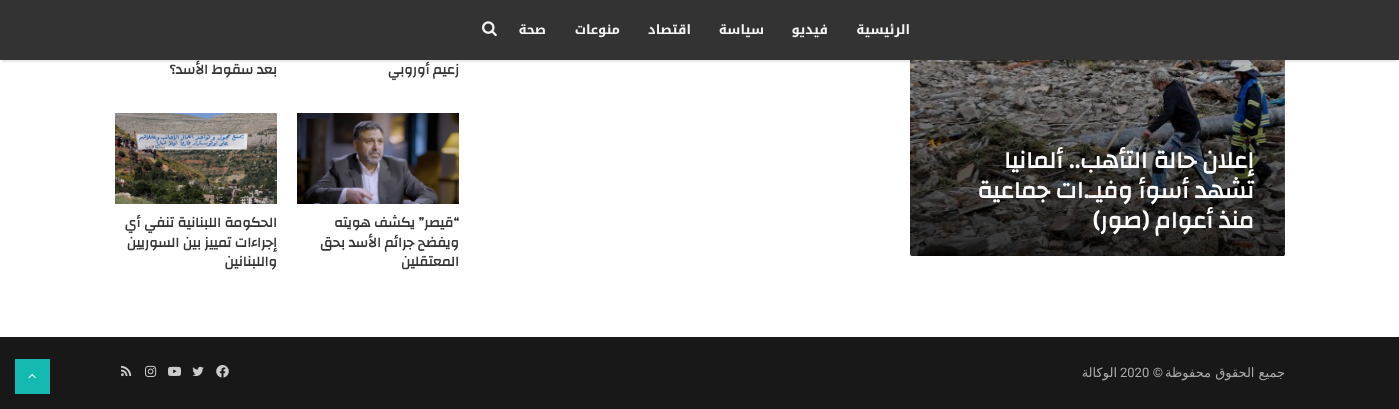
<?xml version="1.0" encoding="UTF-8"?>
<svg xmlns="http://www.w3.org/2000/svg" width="1399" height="409">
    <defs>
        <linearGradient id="g1" gradientUnits="userSpaceOnUse" x1="1098" y1="-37" x2="1098" y2="256"><stop offset="0" stop-color="#000000" stop-opacity="0"/><stop offset="1" stop-color="#000000" stop-opacity="0.75"/></linearGradient>
        <filter id="blur1" x="-50%" y="-200%" width="200%" height="500%"><feGaussianBlur stdDeviation="1"/></filter>
    </defs>
    <rect width="100%" height="100%" fill="#FFFFFF"/>
    <image x="910" y="60" width="375" height="196" href="img_02.png"/>
    <path d="M 910 -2 H 1285 V 254 C 1285 255 1284 256 1283 256 H 912 C 911 256 910 255 910 254 Z" fill="url(#g1)"/>
    <rect x="2" y="6" width="1395" height="56" fill="#000000" fill-opacity="0.1" filter="url(#blur1)"/>
    <rect x="0" y="0" width="1399" height="60" fill="#333333"/>
    <text x="910" y="34" font-family="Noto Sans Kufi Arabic" font-size="13" font-weight="700" direction="rtl" fill="#F5F5F5">الرئيسية</text>
    <text x="828" y="34" font-family="Noto Sans Kufi Arabic" font-size="13" font-weight="700" direction="rtl" fill="#F5F5F5">فيديو</text>
    <text x="764" y="34" font-family="Noto Sans Kufi Arabic" font-size="13" font-weight="700" direction="rtl" fill="#F5F5F5">سياسة</text>
    <text x="691" y="34" font-family="Noto Sans Kufi Arabic" font-size="13" font-weight="700" direction="rtl" fill="#F5F5F5">اقتصاد</text>
    <text x="620" y="34" font-family="Noto Sans Kufi Arabic" font-size="13" font-weight="700" direction="rtl" fill="#F5F5F5">منوعات</text>
    <text x="546" y="34" font-family="Noto Sans Kufi Arabic" font-size="13" font-weight="700" direction="rtl" fill="#F5F5F5">صحة</text>
    <image x="482" y="21" width="15" height="16" href="img_01.png"/>
    <text font-family="Changa" font-size="24" font-weight="700" direction="rtl" fill="#FFFFFF">
        <tspan x="1254" y="168">إعلان حالة التأهب.. ألمانيا</tspan>
        <tspan x="1254" y="198">تشهد أسوأ وفيـ.ات جماعية</tspan>
        <tspan x="1254" y="228">منذ أعوام (صور)</tspan>
    </text>
    <text x="459" y="74" font-family="Changa" font-size="14" font-weight="700" direction="rtl" fill="#353535">زعيم أوروبي</text>
    <text x="277" y="74" font-family="Changa" font-size="14" font-weight="700" direction="rtl" fill="#353535">بعد سقوط الأسد؟</text>
    <image x="297" y="113" width="162" height="91" href="img_03.png"/>
    <text font-family="Changa" font-size="14" font-weight="700" direction="rtl" fill="#353535">
        <tspan x="459" y="227">“قيصر” يكشف هويته</tspan>
        <tspan x="459" y="247">ويفضح جرائم الأسد بحق</tspan>
        <tspan x="459" y="266">المعتقلين</tspan>
    </text>
    <image x="115" y="113" width="162" height="91" href="img_04.png"/>
    <text font-family="Changa" font-size="14" font-weight="700" direction="rtl" fill="#353535">
        <tspan x="277" y="227">الحكومة اللبنانية تنفي أي</tspan>
        <tspan x="277" y="247">إجراءات تمييز بين السوريين</tspan>
        <tspan x="277" y="266">واللبنانين</tspan>
    </text>
    <rect x="0" y="337" width="1399" height="72" fill="#181818"/>
    <text x="1285" y="377" font-family="DejaVu Sans" font-size="13" direction="rtl" fill="#AAAAAA">جميع الحقوق محفوظة</text>
    <text x="1163" y="377" font-family="Roboto" font-size="13" direction="rtl" fill="#AAAAAA">©</text>
    <text x="1120" y="377" font-family="Roboto" font-size="13" fill="#AAAAAA">2020</text>
    <text x="1117" y="377" font-family="DejaVu Sans" font-size="13" direction="rtl" fill="#AAAAAA">الوكالة</text>
    <image x="216" y="365" width="13" height="13" href="img_05.png"/>
    <image x="192" y="366" width="12" height="11" href="img_06.png"/>
    <image x="168" y="366" width="13" height="10" href="img_07.png"/>
    <image x="145" y="365" width="12" height="12" href="img_08.png"/>
    <image x="121" y="365" width="11" height="12" href="img_09.png"/>
    <rect x="15" y="359" width="35" height="35" fill="#14B9B2"/>
    <image x="28" y="373" width="8" height="6" href="img_10.png"/>
</svg>
